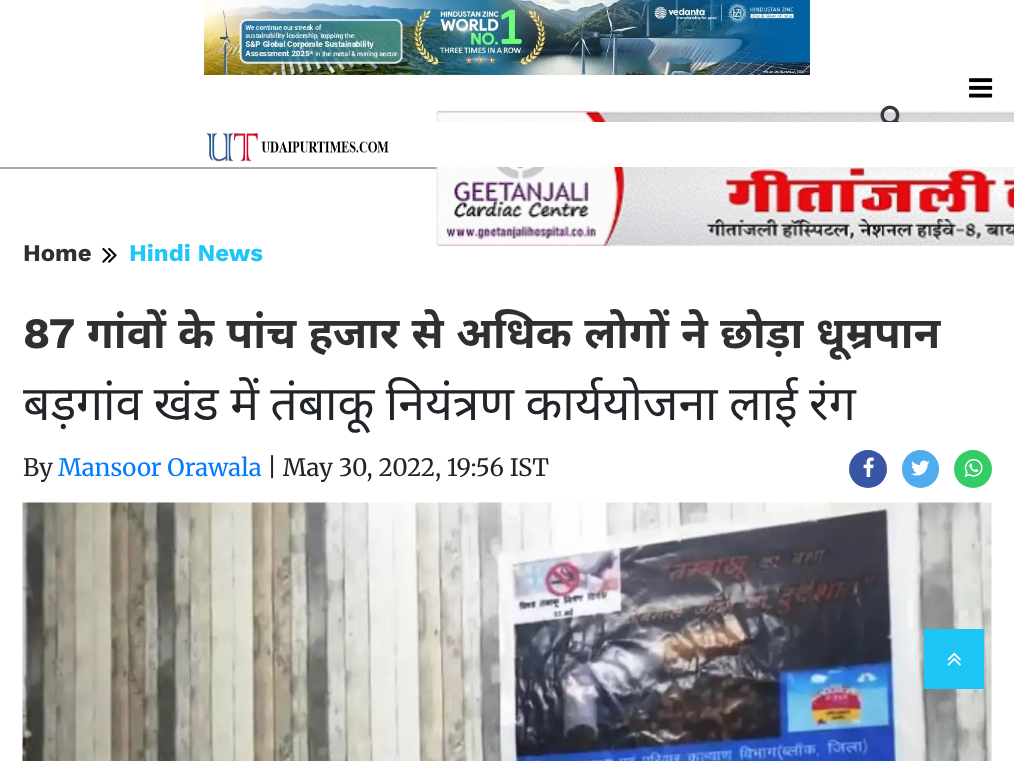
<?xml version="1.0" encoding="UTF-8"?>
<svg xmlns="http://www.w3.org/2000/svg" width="1014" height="761">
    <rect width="100%" height="100%" fill="#FFFFFF"/>
    <rect x="0" y="167" width="437" height="2" fill="#A9A9A9"/>
    <image x="204" y="0" width="606" height="75" href="img_01.png"/>
    <image x="206" y="132" width="183" height="30" href="img_02.png"/>
    <image x="436" y="111" width="578" height="135" href="img_03.png"/>
    <rect x="436" y="122" width="578" height="45" fill="#FFFFFF"/>
    <image x="969" y="78" width="24" height="20" href="img_04.png"/>
    <image x="880" y="105" width="20" height="17" href="img_05.png"/>
    <text x="23" y="261" font-family="Work Sans" font-size="24" font-weight="700" fill="#303030">Home</text>
    <image x="102" y="247" width="15" height="16" href="img_06.png"/>
    <text x="129" y="261" font-family="Work Sans" font-size="24" font-weight="700" fill="#20C6F7">Hindi News</text>
    <text x="23" y="348" font-family="Work Sans" font-size="43.5" font-weight="700" fill="#303030">87</text>
    <text x="87" y="348" word-spacing="1" font-family="Noto Sans" font-size="43.5" font-weight="700" fill="#303030">गांवों के पांच हजार से अधिक लोगों ने छोड़ा धूम्रपान</text>
    <text x="23" y="420" word-spacing="-1" font-family="Noto Sans" font-size="48" fill="#212529">बड़गांव खंड में तंबाकू नियंत्रण कार्ययोजना लाई रंग</text>
    <text x="23" y="476" font-family="Merriweather" font-size="24" fill="#212529">By</text>
    <text x="58" y="476" font-family="Merriweather" font-size="24" fill="#007BFF">Mansoor Orawala</text>
    <text x="267" y="476" font-family="Merriweather" font-size="24" fill="#212529">| May 30, 2022, 19:56 IST</text>
    <circle cx="868" cy="469" r="19" fill="#3956A5"/>
    <image x="863" y="457" width="11" height="20" href="img_07.png"/>
    <rect x="902" y="450" width="37" height="38" rx="18.5" fill="#51ACEF"/>
    <image x="911" y="460" width="19" height="16" href="img_08.png"/>
    <circle cx="973" cy="469" r="19" fill="#33CC66"/>
    <image x="964" y="458" width="19" height="19" href="img_09.png"/>
    <image x="22" y="502" width="970" height="259" href="img_10.png"/>
    <rect x="924" y="629" width="60" height="60" fill="#1DC4F6"/>
    <image x="947" y="652" width="14" height="14" href="img_11.png"/>
</svg>
